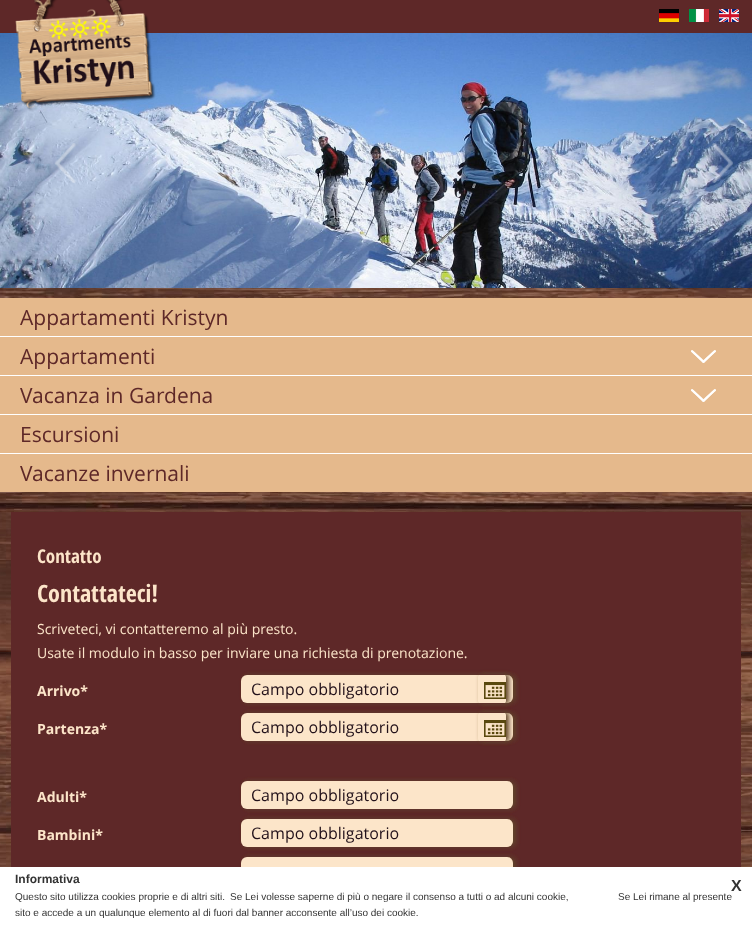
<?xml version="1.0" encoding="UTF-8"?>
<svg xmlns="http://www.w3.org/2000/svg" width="752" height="926">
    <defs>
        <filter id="blur1" x="-50%" y="-200%" width="200%" height="500%"><feGaussianBlur stdDeviation="2.5"/></filter>
        <clipPath id="clip1"><path d="M 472 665 H 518 V 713 H 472 Z M 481 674 H 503 C 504.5 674 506 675.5 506 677 V 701 C 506 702.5 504.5 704 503 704 H 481 C 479.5 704 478 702.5 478 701 V 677 C 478 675.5 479.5 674 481 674 Z" clip-rule="evenodd"/></clipPath>
        <clipPath id="clip2"><path d="M 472 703 H 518 V 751 H 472 Z M 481 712 H 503 C 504.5 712 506 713.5 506 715 V 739 C 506 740.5 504.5 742 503 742 H 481 C 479.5 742 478 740.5 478 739 V 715 C 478 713.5 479.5 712 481 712 Z" clip-rule="evenodd"/></clipPath>
    </defs>
    <rect width="100%" height="100%" fill="#FFFFFF"/>
    <image x="0" y="288" width="752" height="579" href="img_01.png"/>
    <rect x="0" y="0" width="752" height="33" fill="#5E2828"/>
    <image x="0" y="33" width="752" height="255" href="img_06.png"/>
    <image x="15" y="0" width="141" height="112" href="img_02.png"/>
    <image x="659" y="9" width="20" height="13" href="img_03.png"/>
    <image x="689" y="9" width="20" height="13" href="img_04.png"/>
    <image x="719" y="9" width="20" height="13" href="img_05.png"/>
    <image x="55" y="143" width="21" height="40" href="img_07.png"/>
    <image x="712" y="143" width="21" height="40" href="img_08.png"/>
    <rect x="0" y="336" width="752" height="1" fill="#FFFFFF"/>
    <rect x="0" y="298" width="752" height="38" fill="#E5B98C"/>
    <text x="20" y="325" font-family="Open Sans" font-size="21" fill="#5E2828">Appartamenti Kristyn</text>
    <rect x="0" y="375" width="752" height="1" fill="#FFFFFF"/>
    <rect x="0" y="337" width="752" height="38" fill="#E5B98C"/>
    <image x="691" y="350" width="25" height="13" href="img_09.png"/>
    <text x="20" y="364" font-family="Open Sans" font-size="21" fill="#5E2828">Appartamenti</text>
    <rect x="0" y="414" width="752" height="1" fill="#FFFFFF"/>
    <rect x="0" y="376" width="752" height="38" fill="#E5B98C"/>
    <image x="691" y="389" width="25" height="13" href="img_09.png"/>
    <text x="20" y="403" font-family="Open Sans" font-size="21" fill="#5E2828">Vacanza in Gardena</text>
    <rect x="0" y="453" width="752" height="1" fill="#FFFFFF"/>
    <rect x="0" y="415" width="752" height="38" fill="#E5B98C"/>
    <text x="20" y="442" font-family="Open Sans" font-size="21" fill="#5E2828">Escursioni</text>
    <rect x="0" y="454" width="752" height="38" fill="#E5B98C"/>
    <text x="20" y="481" font-family="Open Sans" font-size="21" fill="#5E2828">Vacanze invernali</text>
    <rect x="11" y="512" width="730" height="355" fill="#5E2828"/>
    <text x="37" y="563" font-family="Open Sans Condensed" font-size="19" font-weight="700" fill="#FCE5C9">Contatto</text>
    <text x="37" y="602" font-family="Open Sans Condensed" font-size="24" font-weight="700" fill="#FCE5C9">Contattateci!</text>
    <text font-family="Open Sans" font-size="14" fill="#FCE5C9">
        <tspan x="37" y="634">Scriveteci, vi contatteremo al più presto.</tspan>
        <tspan x="37" y="658">Usate il modulo in basso per inviare una richiesta di prenotazione.</tspan>
    </text>
    <text x="37" y="696" font-family="Open Sans" font-size="14" font-weight="700" fill="#FCE5C9">Arrivo*</text>
    <rect x="244" y="675" width="272" height="28" rx="6" fill="#60452A" filter="url(#blur1)"/>
    <rect x="241" y="675" width="272" height="28" rx="6" fill="#FCE5C9"/>
    <text x="251" y="695" font-family="Open Sans" font-size="16" fill="#22111A">Campo obbligatorio</text>
    <g clip-path="url(#clip1)">
        <rect x="481" y="674" width="28" height="30" rx="3" fill="#60452A" filter="url(#blur1)"/>
    </g>
    <image x="484" y="682" width="22" height="17" href="img_10.png"/>
    <text x="37" y="734" font-family="Open Sans" font-size="14" font-weight="700" fill="#FCE5C9">Partenza*</text>
    <rect x="244" y="713" width="272" height="28" rx="6" fill="#60452A" filter="url(#blur1)"/>
    <rect x="241" y="713" width="272" height="28" rx="6" fill="#FCE5C9"/>
    <text x="251" y="733" font-family="Open Sans" font-size="16" fill="#22111A">Campo obbligatorio</text>
    <g clip-path="url(#clip2)">
        <rect x="481" y="712" width="28" height="30" rx="3" fill="#60452A" filter="url(#blur1)"/>
    </g>
    <image x="484" y="720" width="22" height="17" href="img_10.png"/>
    <text x="37" y="802" font-family="Open Sans" font-size="14" font-weight="700" fill="#FCE5C9">Adulti*</text>
    <rect x="244" y="781" width="272" height="28" rx="6" fill="#60452A" filter="url(#blur1)"/>
    <rect x="241" y="781" width="272" height="28" rx="6" fill="#FCE5C9"/>
    <text x="251" y="801" font-family="Open Sans" font-size="16" fill="#22111A">Campo obbligatorio</text>
    <text x="37" y="840" font-family="Open Sans" font-size="14" font-weight="700" fill="#FCE5C9">Bambini*</text>
    <rect x="244" y="819" width="272" height="28" rx="6" fill="#60452A" filter="url(#blur1)"/>
    <rect x="241" y="819" width="272" height="28" rx="6" fill="#FCE5C9"/>
    <text x="251" y="839" font-family="Open Sans" font-size="16" fill="#22111A">Campo obbligatorio</text>
    <rect x="244" y="857" width="272" height="28" rx="6" fill="#60452A" filter="url(#blur1)"/>
    <rect x="241" y="857" width="272" height="28" rx="6" fill="#FCE5C9"/>
    <rect x="238" y="867" width="284" height="24" fill="#FFFFFF"/>
    <text x="15" y="883" font-family="Liberation Sans" font-size="12" font-weight="700" fill="#333333">Informativa</text>
    <text x="731" y="891" font-family="Liberation Sans" font-size="16" font-weight="700" fill="#333333">X</text>
    <text x="15" y="900" font-family="Liberation Sans" font-size="10" fill="#333333">Questo sito utilizza cookies proprie e di altri siti.</text>
    <text x="230" y="900" font-family="Liberation Sans" font-size="10" fill="#333333">Se Lei volesse saperne di più o negare il consenso a tutti o ad alcuni cookie,</text>
    <text x="618" y="900" font-family="Liberation Sans" font-size="10" fill="#333333">Se Lei rimane al presente</text>
    <text x="15" y="916" font-family="Liberation Sans" font-size="10" fill="#333333">sito e accede a un qualunque elemento al di fuori dal banner acconsente all’uso dei cookie.</text>
</svg>
